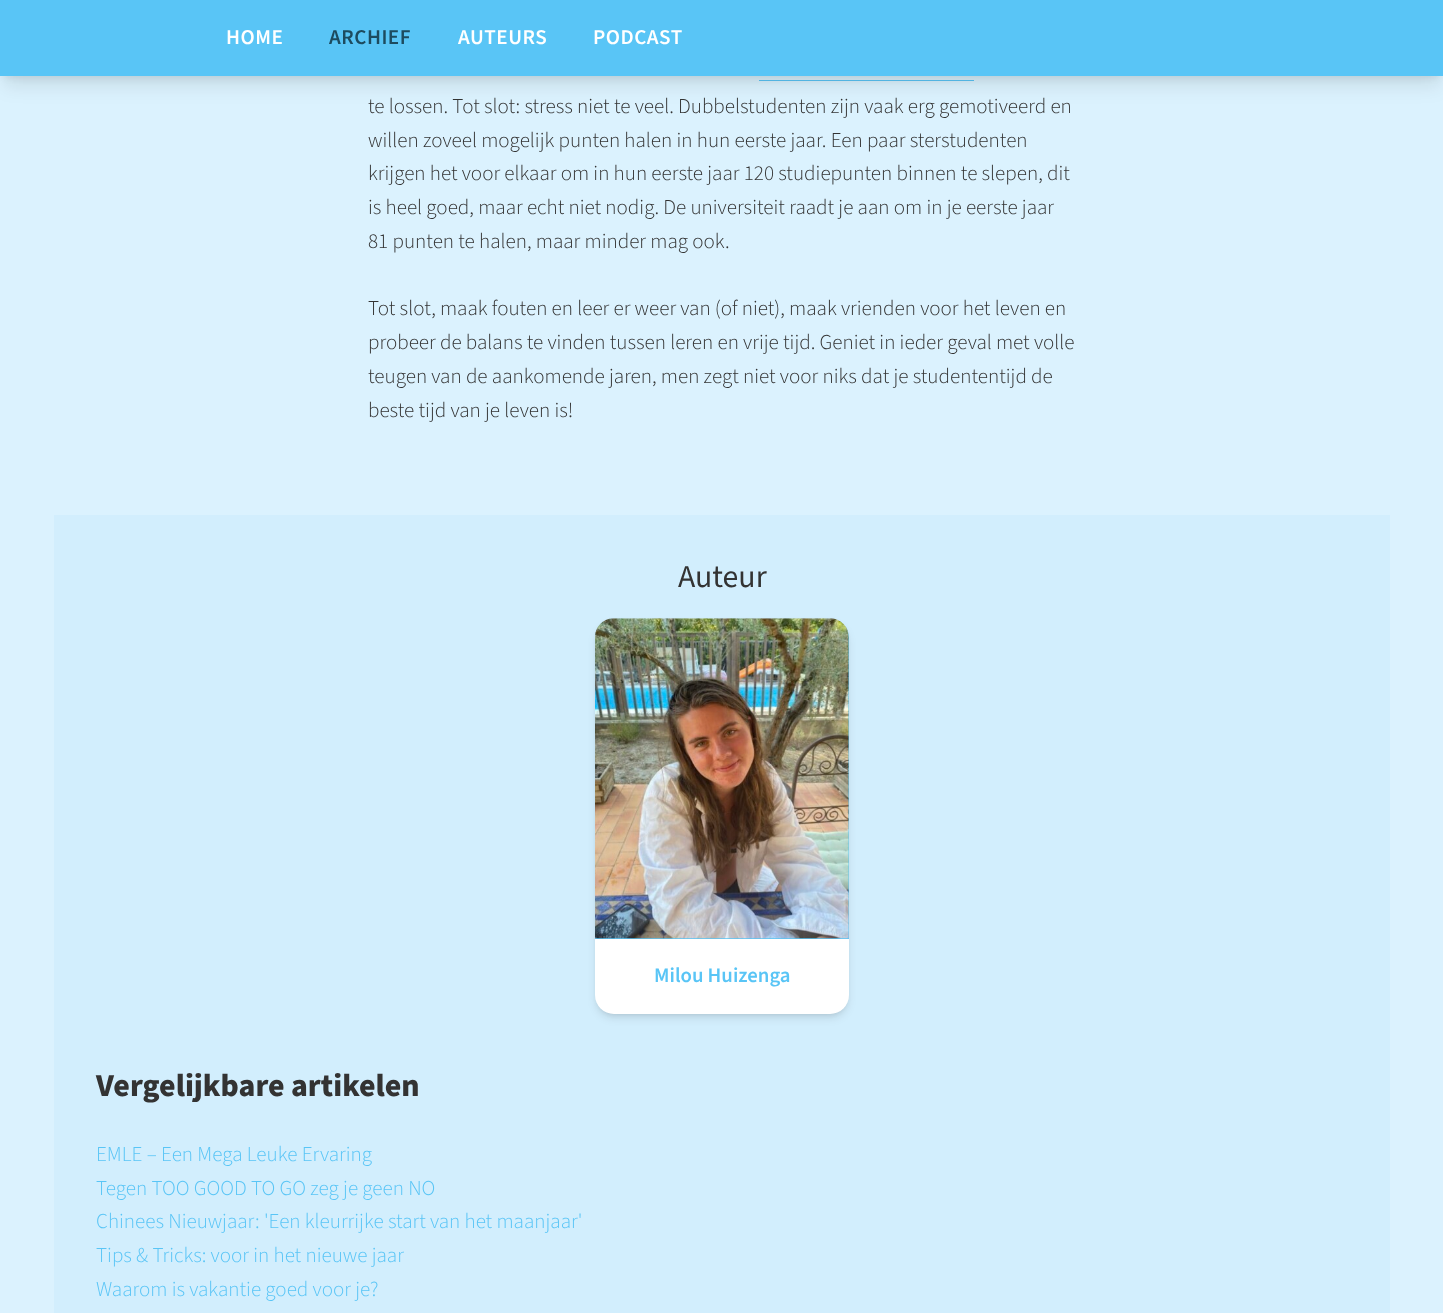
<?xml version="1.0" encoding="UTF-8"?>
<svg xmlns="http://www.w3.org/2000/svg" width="1443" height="1313">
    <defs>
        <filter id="blur1" x="-50%" y="-200%" width="200%" height="500%"><feGaussianBlur stdDeviation="4"/></filter>
        <filter id="blur2" x="-50%" y="-200%" width="200%" height="500%"><feGaussianBlur stdDeviation="9.5"/></filter>
        <filter id="blur3" x="-50%" y="-200%" width="200%" height="500%"><feGaussianBlur stdDeviation="2.5"/></filter>
    </defs>
    <rect width="100%" height="100%" fill="#DBF2FE"/>
    <rect x="759" y="80" width="215" height="1" fill="#59C5F6"/>
    <rect x="5" y="10" width="1434" height="66" fill="#000000" fill-opacity="0.1" filter="url(#blur1)"/>
    <rect x="4" y="16" width="1436" height="69" fill="#000000" fill-opacity="0.1" filter="url(#blur2)"/>
    <rect x="1359" y="0" width="84" height="76" fill="#59C5F6"/>
    <rect x="0" y="0" width="1359" height="76" fill="#59C5F6"/>
    <text x="226" y="44" font-family="'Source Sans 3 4'" font-size="21.1" font-weight="200" letter-spacing="0.5" fill="#FFFFFF">HOME</text>
    <text x="329" y="44" font-family="'Source Sans 3 4'" font-size="21.1" font-weight="200" letter-spacing="0.5" fill="#1D4B5F">ARCHIEF</text>
    <text x="458" y="44" font-family="'Source Sans 3 4'" font-size="21.1" font-weight="200" letter-spacing="0.5" fill="#FFFFFF">AUTEURS</text>
    <text x="593" y="44" font-family="'Source Sans 3 4'" font-size="21.1" font-weight="200" letter-spacing="0.5" fill="#FFFFFF">PODCAST</text>
    <text font-family="'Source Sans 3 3'" font-size="21.1" font-weight="200" fill="#333333">
        <tspan x="368" y="113">te lossen. Tot slot: stress niet te veel. Dubbelstudenten zijn vaak erg gemotiveerd en</tspan>
        <tspan x="368" y="147">willen zoveel mogelijk punten halen in hun eerste jaar. Een paar sterstudenten</tspan>
        <tspan x="368" y="180">krijgen het voor elkaar om in hun eerste jaar 120 studiepunten binnen te slepen, dit</tspan>
        <tspan x="368" y="214">is heel goed, maar echt niet nodig. De universiteit raadt je aan om in je eerste jaar</tspan>
        <tspan x="368" y="248">81 punten te halen, maar minder mag ook.</tspan>
    </text>
    <text font-family="'Source Sans 3 3'" font-size="21.1" font-weight="200" fill="#333333">
        <tspan x="368" y="315">Tot slot, maak fouten en leer er weer van (of niet), maak vrienden voor het leven en</tspan>
        <tspan x="368" y="349">probeer de balans te vinden tussen leren en vrije tijd. Geniet in ieder geval met volle</tspan>
        <tspan x="368" y="383">teugen van de aankomende jaren, men zegt niet voor niks dat je studententijd de</tspan>
        <tspan x="368" y="417">beste tijd van je leven is!</tspan>
    </text>
    <rect x="54" y="515" width="1336" height="798" fill="#D2EEFD"/>
    <text x="678" y="587" font-family="'Source Sans 3'" font-size="31.75" font-weight="200" fill="#333333">Auteur</text>
    <rect x="598" y="624" width="248" height="390" rx="16" fill="#000000" fill-opacity="0.1" filter="url(#blur3)"/>
    <rect x="596" y="625" width="252" height="393" rx="18" fill="#000000" fill-opacity="0.1" filter="url(#blur1)"/>
    <rect x="595" y="619" width="254" height="395" rx="19" fill="#FFFFFF"/>
    <path d="M 614 619 H 830 C 840.5 619 849 627.5 849 638 V 939 H 595 V 638 C 595 627.5 603.5 619 614 619 Z" fill="#59C5F6"/>
    <image x="595" y="618" width="254" height="321" href="img_01.png"/>
    <text x="654" y="982" font-family="'Source Sans 3 4'" font-size="20.75" font-weight="200" fill="#59C5F6">Milou Huizenga</text>
    <text x="96" y="1096" font-family="'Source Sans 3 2'" font-size="31.75" font-weight="200" fill="#333333">Vergelijkbare artikelen</text>
    <text font-family="'Source Sans 3 3'" font-size="21.1" font-weight="200" fill="#59C5F6">
        <tspan x="96" y="1161">EMLE – Een Mega Leuke Ervaring</tspan>
        <tspan x="96" y="1195">Tegen TOO GOOD TO GO zeg je geen NO</tspan>
        <tspan x="96" y="1228">Chinees Nieuwjaar: 'Een kleurrijke start van het maanjaar'</tspan>
        <tspan x="96" y="1262">Tips &amp; Tricks: voor in het nieuwe jaar</tspan>
        <tspan x="96" y="1296">Waarom is vakantie goed voor je?</tspan>
    </text>
</svg>
